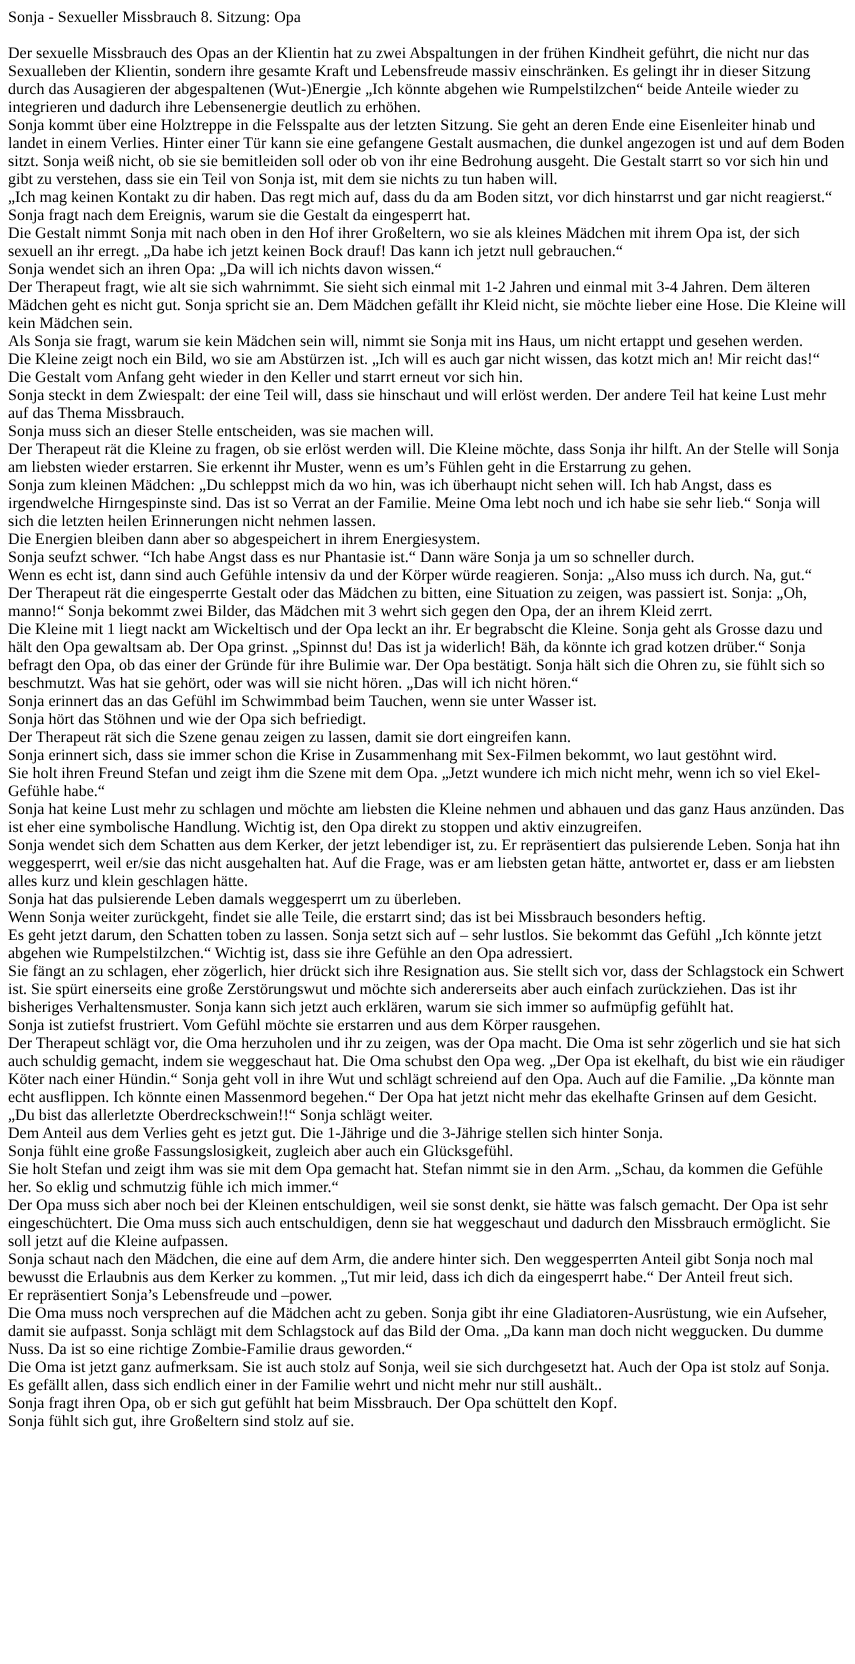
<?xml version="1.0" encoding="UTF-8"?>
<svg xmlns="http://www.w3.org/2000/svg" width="855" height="1664">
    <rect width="100%" height="100%" fill="#FFFFFF"/>
    <text x="8" y="22" font-family="Liberation Serif" font-size="16" fill="#000000">Sonja - Sexueller Missbrauch 8. Sitzung: Opa</text>
    <text font-family="Liberation Serif" font-size="16" fill="#000000">
        <tspan x="8" y="58">Der sexuelle Missbrauch des Opas an der Klientin hat zu zwei Abspaltungen in der frühen Kindheit geführt, die nicht nur das</tspan>
        <tspan x="8" y="76">Sexualleben der Klientin, sondern ihre gesamte Kraft und Lebensfreude massiv einschränken. Es gelingt ihr in dieser Sitzung</tspan>
        <tspan x="8" y="94">durch das Ausagieren der abgespaltenen (Wut-)Energie „Ich könnte abgehen wie Rumpelstilzchen“ beide Anteile wieder zu</tspan>
        <tspan x="8" y="112">integrieren und dadurch ihre Lebensenergie deutlich zu erhöhen.</tspan>
        <tspan x="8" y="130">Sonja kommt über eine Holztreppe in die Felsspalte aus der letzten Sitzung. Sie geht an deren Ende eine Eisenleiter hinab und</tspan>
        <tspan x="8" y="148">landet in einem Verlies. Hinter einer Tür kann sie eine gefangene Gestalt ausmachen, die dunkel angezogen ist und auf dem Boden</tspan>
        <tspan x="8" y="166">sitzt. Sonja weiß nicht, ob sie sie bemitleiden soll oder ob von ihr eine Bedrohung ausgeht. Die Gestalt starrt so vor sich hin und</tspan>
        <tspan x="8" y="184">gibt zu verstehen, dass sie ein Teil von Sonja ist, mit dem sie nichts zu tun haben will.</tspan>
        <tspan x="8" y="202">„Ich mag keinen Kontakt zu dir haben. Das regt mich auf, dass du da am Boden sitzt, vor dich hinstarrst und gar nicht reagierst.“</tspan>
        <tspan x="8" y="220">Sonja fragt nach dem Ereignis, warum sie die Gestalt da eingesperrt hat.</tspan>
        <tspan x="8" y="238">Die Gestalt nimmt Sonja mit nach oben in den Hof ihrer Großeltern, wo sie als kleines Mädchen mit ihrem Opa ist, der sich</tspan>
        <tspan x="8" y="256">sexuell an ihr erregt. „Da habe ich jetzt keinen Bock drauf! Das kann ich jetzt null gebrauchen.“</tspan>
        <tspan x="8" y="274">Sonja wendet sich an ihren Opa: „Da will ich nichts davon wissen.“</tspan>
        <tspan x="8" y="292">Der Therapeut fragt, wie alt sie sich wahrnimmt. Sie sieht sich einmal mit 1-2 Jahren und einmal mit 3-4 Jahren. Dem älteren</tspan>
        <tspan x="8" y="310">Mädchen geht es nicht gut. Sonja spricht sie an. Dem Mädchen gefällt ihr Kleid nicht, sie möchte lieber eine Hose. Die Kleine will</tspan>
        <tspan x="8" y="328">kein Mädchen sein.</tspan>
        <tspan x="8" y="346">Als Sonja sie fragt, warum sie kein Mädchen sein will, nimmt sie Sonja mit ins Haus, um nicht ertappt und gesehen werden.</tspan>
        <tspan x="8" y="364">Die Kleine zeigt noch ein Bild, wo sie am Abstürzen ist. „Ich will es auch gar nicht wissen, das kotzt mich an! Mir reicht das!“</tspan>
        <tspan x="8" y="382">Die Gestalt vom Anfang geht wieder in den Keller und starrt erneut vor sich hin.</tspan>
        <tspan x="8" y="400">Sonja steckt in dem Zwiespalt: der eine Teil will, dass sie hinschaut und will erlöst werden. Der andere Teil hat keine Lust mehr</tspan>
        <tspan x="8" y="418">auf das Thema Missbrauch.</tspan>
        <tspan x="8" y="436">Sonja muss sich an dieser Stelle entscheiden, was sie machen will.</tspan>
        <tspan x="8" y="454">Der Therapeut rät die Kleine zu fragen, ob sie erlöst werden will. Die Kleine möchte, dass Sonja ihr hilft. An der Stelle will Sonja</tspan>
        <tspan x="8" y="472">am liebsten wieder erstarren. Sie erkennt ihr Muster, wenn es um’s Fühlen geht in die Erstarrung zu gehen.</tspan>
        <tspan x="8" y="490">Sonja zum kleinen Mädchen: „Du schleppst mich da wo hin, was ich überhaupt nicht sehen will. Ich hab Angst, dass es</tspan>
        <tspan x="8" y="508">irgendwelche Hirngespinste sind. Das ist so Verrat an der Familie. Meine Oma lebt noch und ich habe sie sehr lieb.“ Sonja will</tspan>
        <tspan x="8" y="526">sich die letzten heilen Erinnerungen nicht nehmen lassen.</tspan>
        <tspan x="8" y="544">Die Energien bleiben dann aber so abgespeichert in ihrem Energiesystem.</tspan>
        <tspan x="8" y="562">Sonja seufzt schwer. “Ich habe Angst dass es nur Phantasie ist.“ Dann wäre Sonja ja um so schneller durch.</tspan>
        <tspan x="8" y="580">Wenn es echt ist, dann sind auch Gefühle intensiv da und der Körper würde reagieren. Sonja: „Also muss ich durch. Na, gut.“</tspan>
        <tspan x="8" y="598">Der Therapeut rät die eingesperrte Gestalt oder das Mädchen zu bitten, eine Situation zu zeigen, was passiert ist. Sonja: „Oh,</tspan>
        <tspan x="8" y="616">manno!“ Sonja bekommt zwei Bilder, das Mädchen mit 3 wehrt sich gegen den Opa, der an ihrem Kleid zerrt.</tspan>
        <tspan x="8" y="634">Die Kleine mit 1 liegt nackt am Wickeltisch und der Opa leckt an ihr. Er begrabscht die Kleine. Sonja geht als Grosse dazu und</tspan>
        <tspan x="8" y="652">hält den Opa gewaltsam ab. Der Opa grinst. „Spinnst du! Das ist ja widerlich! Bäh, da könnte ich grad kotzen drüber.“ Sonja</tspan>
        <tspan x="8" y="670">befragt den Opa, ob das einer der Gründe für ihre Bulimie war. Der Opa bestätigt. Sonja hält sich die Ohren zu, sie fühlt sich so</tspan>
        <tspan x="8" y="688">beschmutzt. Was hat sie gehört, oder was will sie nicht hören. „Das will ich nicht hören.“</tspan>
        <tspan x="8" y="706">Sonja erinnert das an das Gefühl im Schwimmbad beim Tauchen, wenn sie unter Wasser ist.</tspan>
        <tspan x="8" y="724">Sonja hört das Stöhnen und wie der Opa sich befriedigt.</tspan>
        <tspan x="8" y="742">Der Therapeut rät sich die Szene genau zeigen zu lassen, damit sie dort eingreifen kann.</tspan>
        <tspan x="8" y="760">Sonja erinnert sich, dass sie immer schon die Krise in Zusammenhang mit Sex-Filmen bekommt, wo laut gestöhnt wird.</tspan>
        <tspan x="8" y="778">Sie holt ihren Freund Stefan und zeigt ihm die Szene mit dem Opa. „Jetzt wundere ich mich nicht mehr, wenn ich so viel Ekel-</tspan>
        <tspan x="8" y="796">Gefühle habe.“</tspan>
        <tspan x="8" y="814">Sonja hat keine Lust mehr zu schlagen und möchte am liebsten die Kleine nehmen und abhauen und das ganz Haus anzünden. Das</tspan>
        <tspan x="8" y="832">ist eher eine symbolische Handlung. Wichtig ist, den Opa direkt zu stoppen und aktiv einzugreifen.</tspan>
        <tspan x="8" y="850">Sonja wendet sich dem Schatten aus dem Kerker, der jetzt lebendiger ist, zu. Er repräsentiert das pulsierende Leben. Sonja hat ihn</tspan>
        <tspan x="8" y="868">weggesperrt, weil er/sie das nicht ausgehalten hat. Auf die Frage, was er am liebsten getan hätte, antwortet er, dass er am liebsten</tspan>
        <tspan x="8" y="886">alles kurz und klein geschlagen hätte.</tspan>
        <tspan x="8" y="904">Sonja hat das pulsierende Leben damals weggesperrt um zu überleben.</tspan>
        <tspan x="8" y="922">Wenn Sonja weiter zurückgeht, findet sie alle Teile, die erstarrt sind; das ist bei Missbrauch besonders heftig.</tspan>
        <tspan x="8" y="940">Es geht jetzt darum, den Schatten toben zu lassen. Sonja setzt sich auf – sehr lustlos. Sie bekommt das Gefühl „Ich könnte jetzt</tspan>
        <tspan x="8" y="958">abgehen wie Rumpelstilzchen.“ Wichtig ist, dass sie ihre Gefühle an den Opa adressiert.</tspan>
        <tspan x="8" y="976">Sie fängt an zu schlagen, eher zögerlich, hier drückt sich ihre Resignation aus. Sie stellt sich vor, dass der Schlagstock ein Schwert</tspan>
        <tspan x="8" y="994">ist. Sie spürt einerseits eine große Zerstörungswut und möchte sich andererseits aber auch einfach zurückziehen. Das ist ihr</tspan>
        <tspan x="8" y="1012">bisheriges Verhaltensmuster. Sonja kann sich jetzt auch erklären, warum sie sich immer so aufmüpfig gefühlt hat.</tspan>
        <tspan x="8" y="1030">Sonja ist zutiefst frustriert. Vom Gefühl möchte sie erstarren und aus dem Körper rausgehen.</tspan>
        <tspan x="8" y="1048">Der Therapeut schlägt vor, die Oma herzuholen und ihr zu zeigen, was der Opa macht. Die Oma ist sehr zögerlich und sie hat sich</tspan>
        <tspan x="8" y="1066">auch schuldig gemacht, indem sie weggeschaut hat. Die Oma schubst den Opa weg. „Der Opa ist ekelhaft, du bist wie ein räudiger</tspan>
        <tspan x="8" y="1084">Köter nach einer Hündin.“ Sonja geht voll in ihre Wut und schlägt schreiend auf den Opa. Auch auf die Familie. „Da könnte man</tspan>
        <tspan x="8" y="1102">echt ausflippen. Ich könnte einen Massenmord begehen.“ Der Opa hat jetzt nicht mehr das ekelhafte Grinsen auf dem Gesicht.</tspan>
        <tspan x="8" y="1120">„Du bist das allerletzte Oberdreckschwein!!“ Sonja schlägt weiter.</tspan>
        <tspan x="8" y="1138">Dem Anteil aus dem Verlies geht es jetzt gut. Die 1-Jährige und die 3-Jährige stellen sich hinter Sonja.</tspan>
        <tspan x="8" y="1156">Sonja fühlt eine große Fassungslosigkeit, zugleich aber auch ein Glücksgefühl.</tspan>
        <tspan x="8" y="1174">Sie holt Stefan und zeigt ihm was sie mit dem Opa gemacht hat. Stefan nimmt sie in den Arm. „Schau, da kommen die Gefühle</tspan>
        <tspan x="8" y="1192">her. So eklig und schmutzig fühle ich mich immer.“</tspan>
        <tspan x="8" y="1210">Der Opa muss sich aber noch bei der Kleinen entschuldigen, weil sie sonst denkt, sie hätte was falsch gemacht. Der Opa ist sehr</tspan>
        <tspan x="8" y="1228">eingeschüchtert. Die Oma muss sich auch entschuldigen, denn sie hat weggeschaut und dadurch den Missbrauch ermöglicht. Sie</tspan>
        <tspan x="8" y="1246">soll jetzt auf die Kleine aufpassen.</tspan>
        <tspan x="8" y="1264">Sonja schaut nach den Mädchen, die eine auf dem Arm, die andere hinter sich. Den weggesperrten Anteil gibt Sonja noch mal</tspan>
        <tspan x="8" y="1282">bewusst die Erlaubnis aus dem Kerker zu kommen. „Tut mir leid, dass ich dich da eingesperrt habe.“ Der Anteil freut sich.</tspan>
        <tspan x="8" y="1300">Er repräsentiert Sonja’s Lebensfreude und –power.</tspan>
        <tspan x="8" y="1318">Die Oma muss noch versprechen auf die Mädchen acht zu geben. Sonja gibt ihr eine Gladiatoren-Ausrüstung, wie ein Aufseher,</tspan>
        <tspan x="8" y="1336">damit sie aufpasst. Sonja schlägt mit dem Schlagstock auf das Bild der Oma. „Da kann man doch nicht weggucken. Du dumme</tspan>
        <tspan x="8" y="1354">Nuss. Da ist so eine richtige Zombie-Familie draus geworden.“</tspan>
        <tspan x="8" y="1372">Die Oma ist jetzt ganz aufmerksam. Sie ist auch stolz auf Sonja, weil sie sich durchgesetzt hat. Auch der Opa ist stolz auf Sonja.</tspan>
        <tspan x="8" y="1390">Es gefällt allen, dass sich endlich einer in der Familie wehrt und nicht mehr nur still aushält..</tspan>
        <tspan x="8" y="1408">Sonja fragt ihren Opa, ob er sich gut gefühlt hat beim Missbrauch. Der Opa schüttelt den Kopf.</tspan>
        <tspan x="8" y="1426">Sonja fühlt sich gut, ihre Großeltern sind stolz auf sie.</tspan>
    </text>
</svg>
